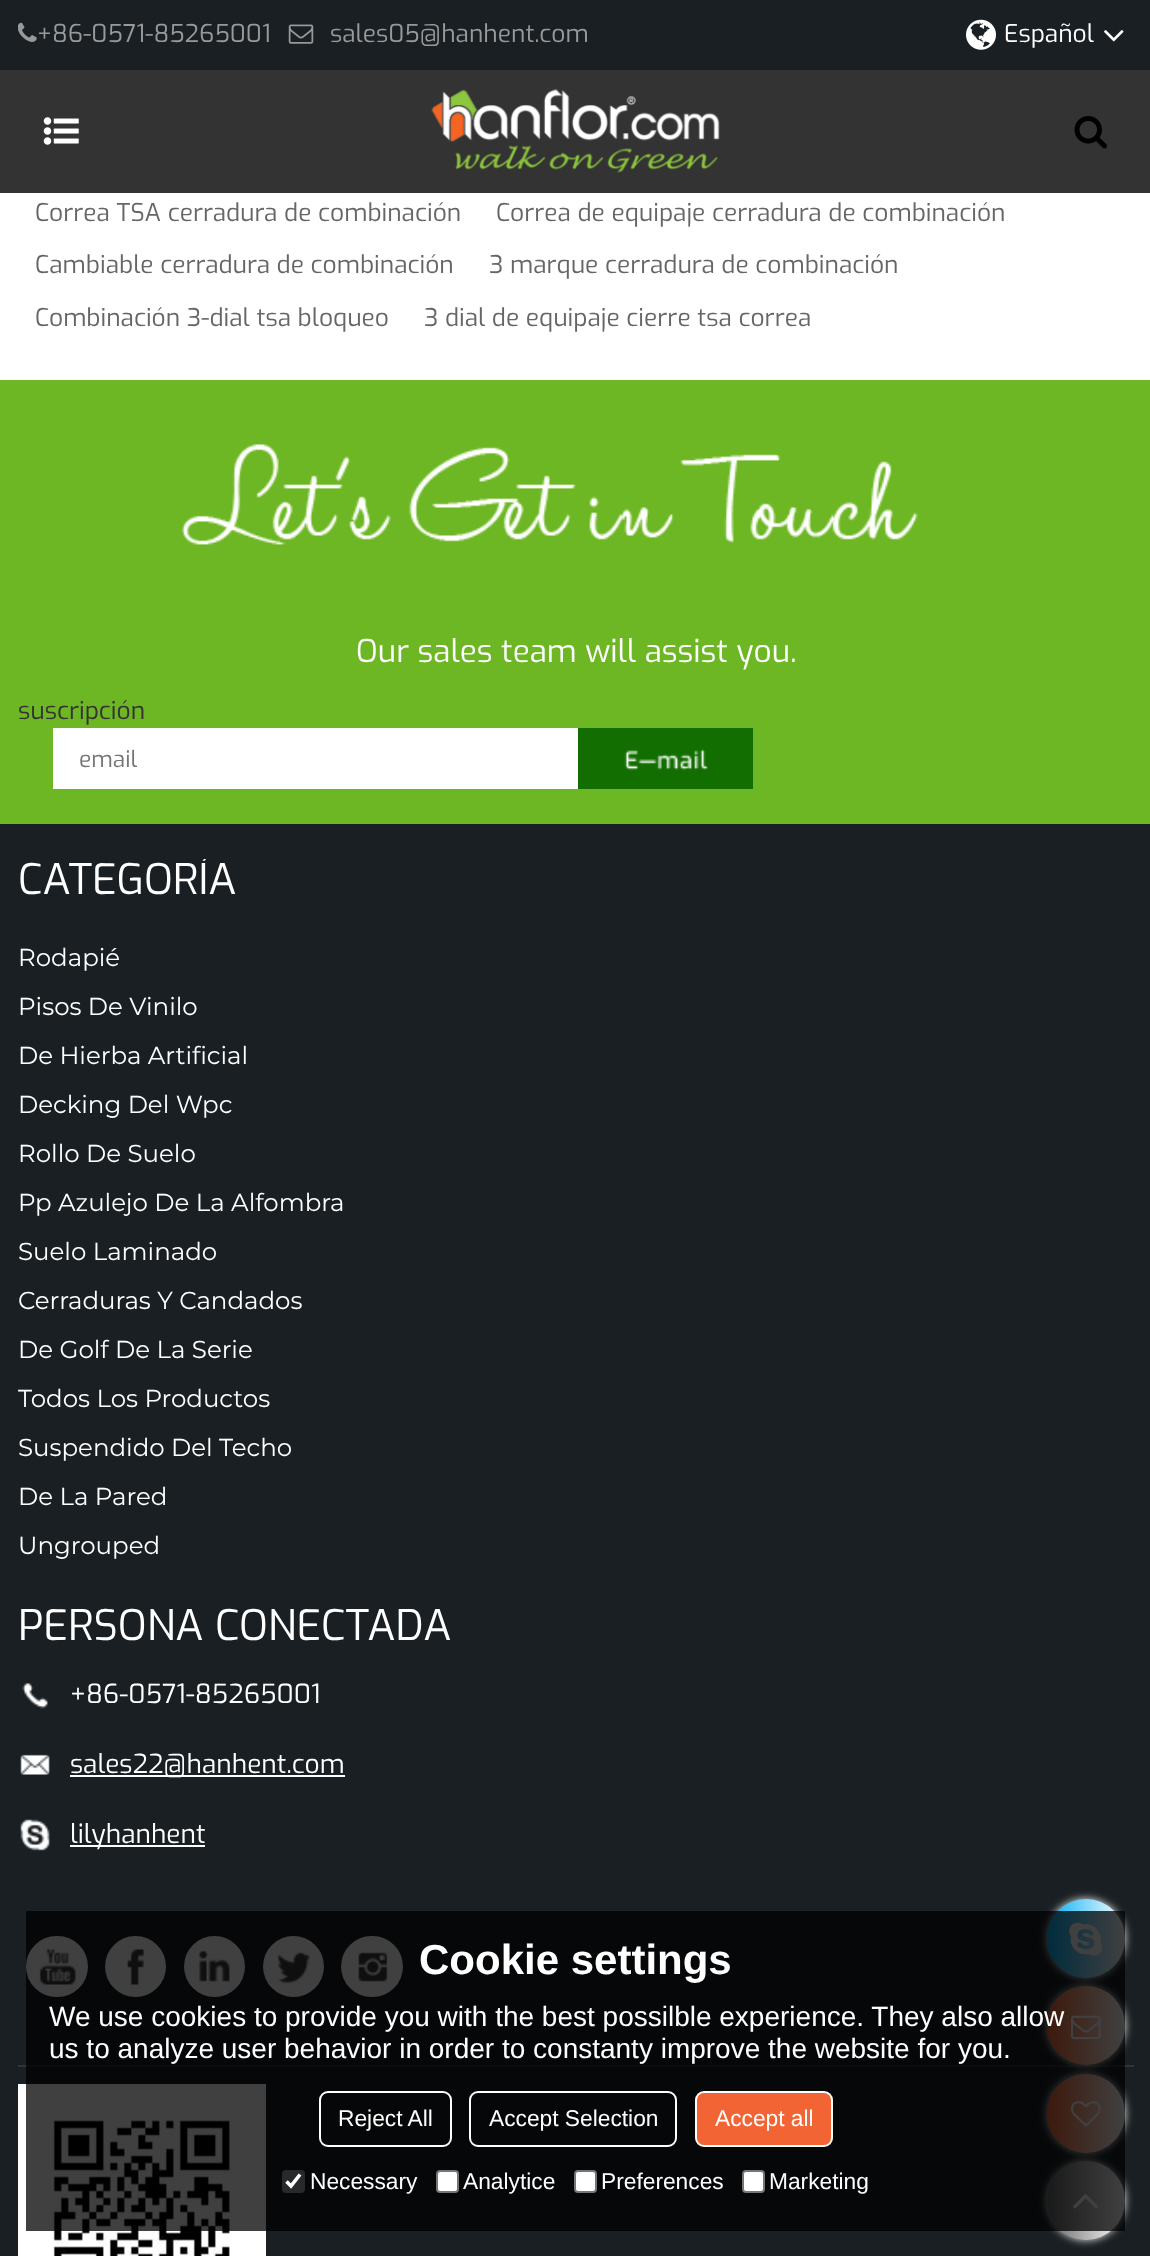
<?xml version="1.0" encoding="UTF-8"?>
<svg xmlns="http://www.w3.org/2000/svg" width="1150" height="2256">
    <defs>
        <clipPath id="clip1"><rect x="18" y="859" width="1116" height="42"/></clipPath>
        <filter id="blur1" x="-50%" y="-200%" width="200%" height="500%"><feGaussianBlur stdDeviation="4.5"/></filter>
        <linearGradient id="g1" gradientUnits="userSpaceOnUse" x1="1047" y1="1938" x2="1125" y2="1938"><stop offset="0" stop-color="#01AEF3"/><stop offset="1" stop-color="#FFFFFF"/></linearGradient>
        <linearGradient id="g2" gradientUnits="userSpaceOnUse" x1="1047" y1="2026" x2="1125" y2="2026"><stop offset="0" stop-color="#F26434"/><stop offset="1" stop-color="#FFFFFF"/></linearGradient>
        <linearGradient id="g3" gradientUnits="userSpaceOnUse" x1="1047" y1="2113" x2="1125" y2="2113"><stop offset="0" stop-color="#F26434"/><stop offset="1" stop-color="#FFFFFF"/></linearGradient>
        <linearGradient id="g4" gradientUnits="userSpaceOnUse" x1="1047" y1="2201" x2="1125" y2="2201"><stop offset="0" stop-color="#666666"/><stop offset="1" stop-color="#FFFFFF"/></linearGradient>
    </defs>
    <rect width="100%" height="100%" fill="#FFFFFF"/>
    <rect x="0" y="0" width="1150" height="70" fill="#191F23"/>
    <image x="18" y="22" width="19" height="20" href="img_01.png"/>
    <text x="37" y="42" font-family="Exo" font-size="24.5" fill="#999999">+86-0571-85265001</text>
    <image x="288" y="24" width="26" height="20" href="img_02.png"/>
    <text x="330" y="42" font-family="Exo" font-size="24.5" fill="#999999">sales05@hanhent.com</text>
    <image x="966" y="19" width="30" height="31" href="img_03.png"/>
    <text x="1004" y="42" font-family="Exo" font-size="24.5" fill="#FFFFFF">Español</text>
    <image x="1104" y="30" width="20" height="12" href="img_04.png"/>
    <rect x="0" y="70" width="1150" height="123" fill="#333333"/>
    <image x="43" y="117" width="36" height="28" href="img_05.png"/>
    <image x="431" y="89" width="289" height="84" href="img_06.png"/>
    <image x="1074" y="116" width="33" height="33" href="img_07.png"/>
    <text x="35" y="221" font-family="Exo" font-size="24.5" fill="#666666">Correa TSA cerradura de combinación</text>
    <text x="496" y="221" font-family="Exo" font-size="24.5" fill="#666666">Correa de equipaje cerradura de combinación</text>
    <text x="35" y="273" font-family="Exo" font-size="24.5" fill="#666666">Cambiable cerradura de combinación</text>
    <text x="489" y="273" font-family="Exo" font-size="24.5" fill="#666666">3 marque cerradura de combinación</text>
    <text x="35" y="326" font-family="Exo" font-size="24.5" fill="#666666">Combinación 3-dial tsa bloqueo</text>
    <text x="424" y="326" font-family="Exo" font-size="24.5" fill="#666666">3 dial de equipaje cierre tsa correa</text>
    <rect x="0" y="380" width="1150" height="444" fill="#6DB724"/>
    <image x="182" y="444" width="736" height="101" href="img_08.png"/>
    <text x="356" y="662" font-family="Exo" font-size="31.5" fill="#FFFFFF">Our sales team will assist you.</text>
    <text x="18" y="719" font-family="Exo" font-size="24.5" fill="#333333">suscripción</text>
    <rect x="53" y="728" width="525" height="61" fill="#FFFFFF"/>
    <text x="79" y="767" font-family="Exo" font-size="22.75" fill="#757575">email</text>
    <rect x="578" y="728" width="175" height="61" fill="#126E00"/>
    <image x="624" y="749" width="84" height="22" href="img_09.png"/>
    <rect x="0" y="824" width="1150" height="1432" fill="#191F23"/>
    <g clip-path="url(#clip1)">
        <text x="18" y="894" font-family="Exo" font-size="42" fill="#FFFFFF">CATEGORÍA</text>
    </g>
    <text x="18" y="966" font-family="Montserrat" font-size="24.5" font-weight="100" fill="#FFFFFF">Rodapié</text>
    <text x="18" y="1015" font-family="Montserrat" font-size="24.5" font-weight="100" fill="#FFFFFF">Pisos De Vinilo</text>
    <text x="18" y="1064" font-family="Montserrat" font-size="24.5" font-weight="100" fill="#FFFFFF">De Hierba Artificial</text>
    <text x="18" y="1113" font-family="Montserrat" font-size="24.5" font-weight="100" fill="#FFFFFF">Decking Del Wpc</text>
    <text x="18" y="1162" font-family="Montserrat" font-size="24.5" font-weight="100" fill="#FFFFFF">Rollo De Suelo</text>
    <text x="18" y="1211" font-family="Montserrat" font-size="24.5" font-weight="100" fill="#FFFFFF">Pp Azulejo De La Alfombra</text>
    <text x="18" y="1260" font-family="Montserrat" font-size="24.5" font-weight="100" fill="#FFFFFF">Suelo Laminado</text>
    <text x="18" y="1309" font-family="Montserrat" font-size="24.5" font-weight="100" fill="#FFFFFF">Cerraduras Y Candados</text>
    <text x="18" y="1358" font-family="Montserrat" font-size="24.5" font-weight="100" fill="#FFFFFF">De Golf De La Serie</text>
    <text x="18" y="1407" font-family="Montserrat" font-size="24.5" font-weight="100" fill="#FFFFFF">Todos Los Productos</text>
    <text x="18" y="1456" font-family="Montserrat" font-size="24.5" font-weight="100" fill="#FFFFFF">Suspendido Del Techo</text>
    <text x="18" y="1505" font-family="Montserrat" font-size="24.5" font-weight="100" fill="#FFFFFF">De La Pared</text>
    <text x="18" y="1554" font-family="Montserrat" font-size="24.5" font-weight="100" fill="#FFFFFF">Ungrouped</text>
    <text x="18" y="1640" font-family="Exo" font-size="42" fill="#FFFFFF">PERSONA CONECTADA</text>
    <image x="22" y="1683" width="26" height="26" href="img_10.png"/>
    <text x="70" y="1703" font-family="Exo" font-size="26.25" fill="#FFFFFF">+86-0571-85265001</text>
    <image x="20" y="1754" width="30" height="21" href="img_11.png"/>
    <rect x="70" y="1775" width="275" height="2" fill="#FFFFFF"/>
    <text x="70" y="1773" font-family="Exo" font-size="26.25" fill="#FFFFFF">sales22@hanhent.com</text>
    <image x="20" y="1819" width="30" height="32" href="img_12.png"/>
    <rect x="70" y="1845" width="135" height="2" fill="#FFFFFF"/>
    <text x="70" y="1843" font-family="Exo" font-size="26.25" fill="#FFFFFF">lilyhanhent</text>
    <rect x="26" y="1936" width="62" height="61" rx="30.5" fill="#FFFFFF"/>
    <image x="39" y="1949" width="37" height="36" href="img_13.png"/>
    <circle cx="135.5" cy="1966.5" r="30.5" fill="#FFFFFF"/>
    <image x="127" y="1949" width="17" height="36" href="img_14.png"/>
    <circle cx="214.5" cy="1966.5" r="30.5" fill="#FFFFFF"/>
    <image x="199" y="1950" width="31" height="32" href="img_15.png"/>
    <circle cx="293.5" cy="1966.5" r="30.5" fill="#FFFFFF"/>
    <image x="277" y="1952" width="34" height="32" href="img_16.png"/>
    <rect x="341" y="1936" width="62" height="61" rx="30.5" fill="#FFFFFF"/>
    <image x="358" y="1952" width="30" height="30" href="img_17.png"/>
    <rect x="18" y="2065" width="1116" height="2" fill="#303539"/>
    <rect x="22.5" y="2088.5" width="239" height="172" fill="none" stroke="#FFFFFF" stroke-width="9"/>
    <image x="27" y="2093" width="230" height="163" href="img_18.png"/>
    <rect x="1047" y="1899" width="78" height="79" rx="39" fill="#EEEEEE" filter="url(#blur1)"/>
    <rect x="1047" y="1899" width="78" height="79" rx="39" fill="url(#g1)"/>
    <image x="1069" y="1922" width="34" height="34" href="img_19.png"/>
    <rect x="1047" y="1986" width="78" height="79" rx="39" fill="#EEEEEE" filter="url(#blur1)"/>
    <rect x="1047" y="1986" width="78" height="79" rx="39" fill="url(#g2)"/>
    <image x="1071" y="2015" width="30" height="25" href="img_20.png"/>
    <rect x="1047" y="2074" width="78" height="79" rx="39" fill="#EEEEEE" filter="url(#blur1)"/>
    <rect x="1047" y="2074" width="78" height="79" rx="39" fill="url(#g3)"/>
    <image x="1071" y="2101" width="30" height="26" href="img_21.png"/>
    <rect x="1047" y="2161" width="78" height="79" rx="39" fill="#EEEEEE" filter="url(#blur1)"/>
    <rect x="1047" y="2161" width="78" height="79" rx="39" fill="url(#g4)"/>
    <image x="1073" y="2194" width="26" height="15" href="img_22.png"/>
    <rect x="26" y="1911" width="1099" height="320" fill="#000000" fill-opacity="0.75"/>
    <text x="419" y="1974" font-family="Liberation Sans" font-size="42" font-weight="700" fill="#FFFFFF">Cookie settings</text>
    <text font-family="Liberation Sans" font-size="28" fill="#FFFFFF">
        <tspan x="49" y="2026">We use cookies to provide you with the best possilble experience. They also allow</tspan>
        <tspan x="49" y="2058">us to analyze user behavior in order to constanty improve the website for you.</tspan>
    </text>
    <rect x="320" y="2092" width="131" height="54" rx="8" fill="none" stroke="#FFFFFF" stroke-width="2"/>
    <text x="338" y="2126" font-family="Liberation Sans" font-size="22.75" fill="#FFFFFF">Reject All</text>
    <rect x="470" y="2092" width="206" height="54" rx="8" fill="none" stroke="#FFFFFF" stroke-width="2"/>
    <text x="489" y="2126" font-family="Liberation Sans" font-size="22.75" fill="#FFFFFF">Accept Selection</text>
    <rect x="696" y="2092" width="136" height="54" rx="8" fill="#F26434" stroke="#FFFFFF" stroke-width="2"/>
    <text x="715" y="2126" font-family="Liberation Sans" font-size="22.75" fill="#FFFFFF">Accept all</text>
    <rect x="282" y="2170" width="23" height="23" rx="4" fill="#28292A"/>
    <path d="M 286.5 2181.5 L 291 2186 L 300 2174.5" fill="none" stroke="#FFFFFF" stroke-width="3.6"/>
    <text x="310" y="2189" font-family="Liberation Sans" font-size="22.75" fill="#FFFFFF">Necessary</text>
    <rect x="437" y="2171" width="21" height="21" rx="3" fill="#FFFFFF" stroke="#767676" stroke-width="2"/>
    <text x="463" y="2189" font-family="Liberation Sans" font-size="22.75" fill="#FFFFFF">Analytice</text>
    <rect x="575" y="2171" width="21" height="21" rx="3" fill="#FFFFFF" stroke="#767676" stroke-width="2"/>
    <text x="601" y="2189" font-family="Liberation Sans" font-size="22.75" fill="#FFFFFF">Preferences</text>
    <rect x="743" y="2171" width="21" height="21" rx="3" fill="#FFFFFF" stroke="#767676" stroke-width="2"/>
    <text x="769" y="2189" font-family="Liberation Sans" font-size="22.75" fill="#FFFFFF">Marketing</text>
</svg>
